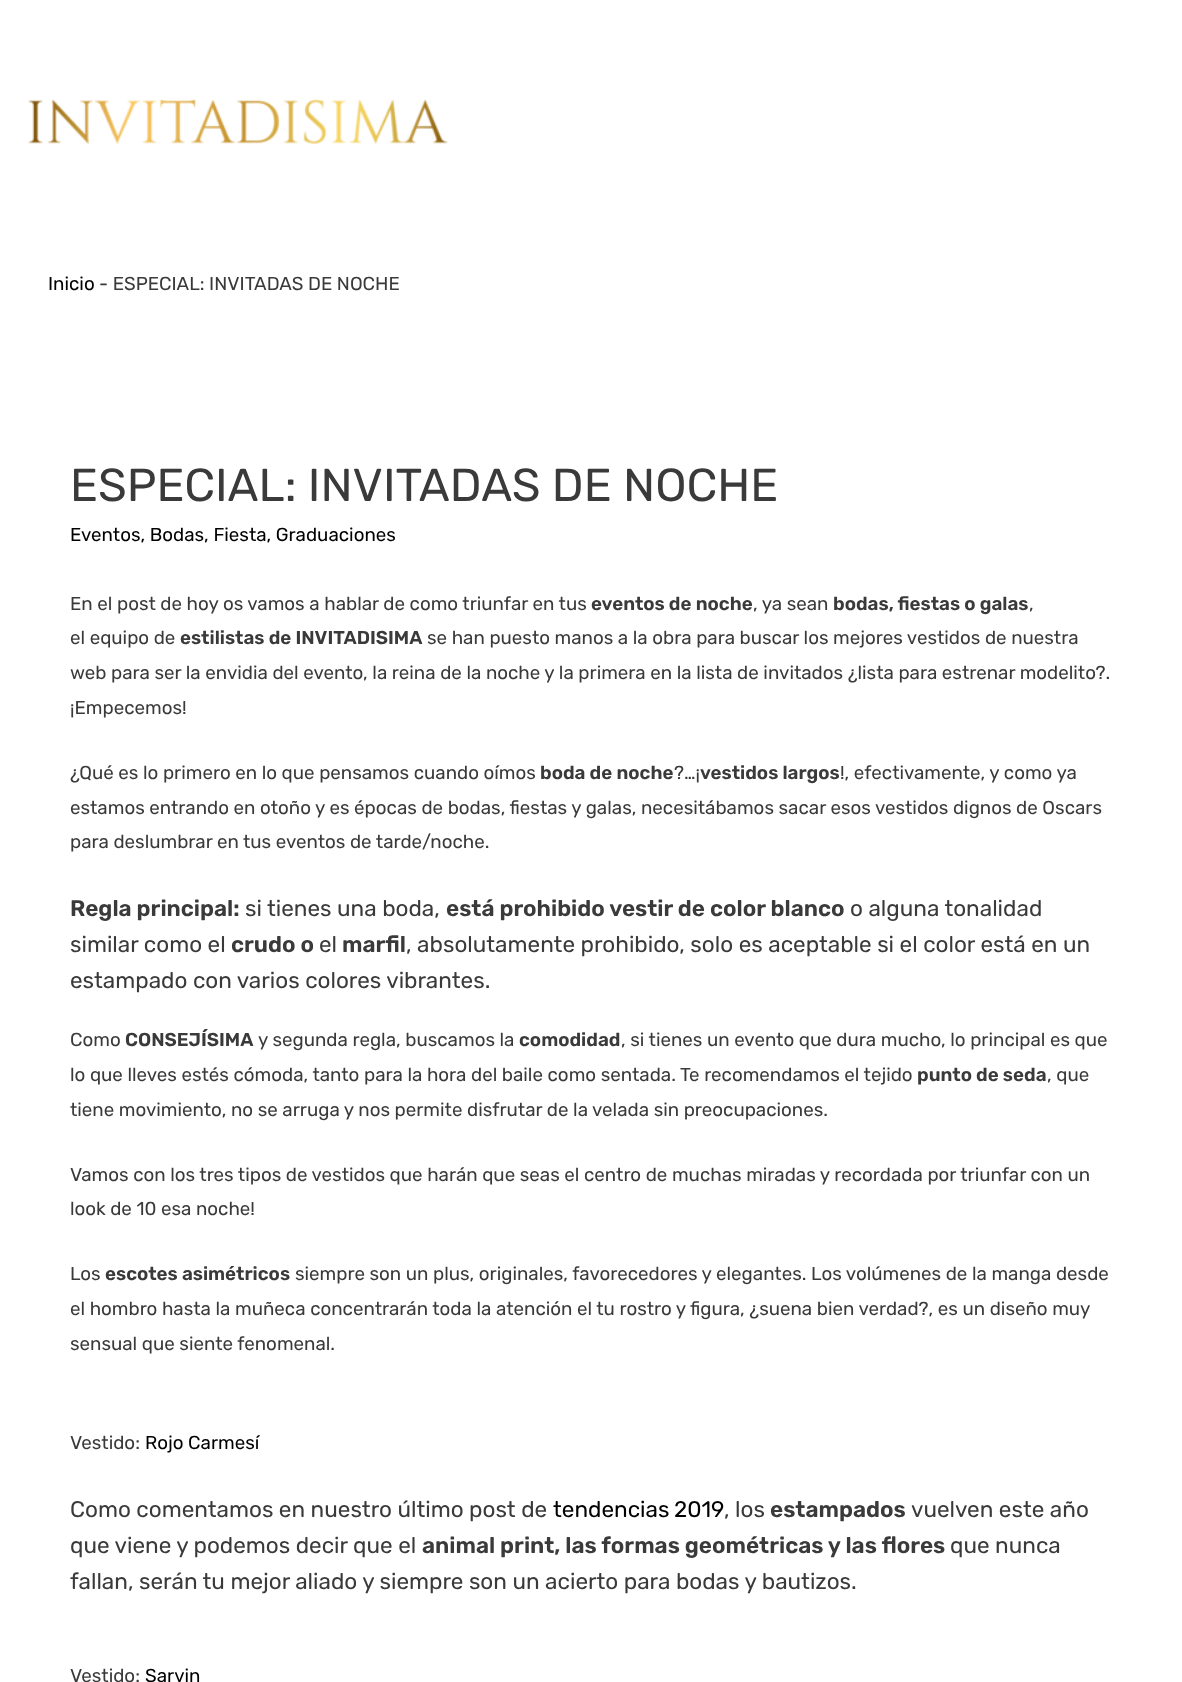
<?xml version="1.0" encoding="UTF-8"?>
<svg xmlns="http://www.w3.org/2000/svg" width="1182" height="1682">
    <rect width="100%" height="100%" fill="#FFFFFF"/>
    <image x="28" y="99" width="420" height="45" href="img_01.png"/>
    <text x="48" y="290" font-family="Rubik" font-size="18.75" fill="#000000">Inicio</text>
    <text x="99" y="290" font-family="Rubik" font-size="18.75" fill="#3A3A3A">- ESPECIAL: INVITADAS DE NOCHE</text>
    <text x="70" y="501" font-family="Rubik" font-size="46.25" fill="#3A3A3A">ESPECIAL: INVITADAS DE NOCHE</text>
    <text x="70" y="541" font-family="Rubik" font-size="18.75" fill="#000000">Eventos, Bodas, Fiesta, Graduaciones</text>
    <text x="70" y="610" font-family="Rubik" font-size="18.75" fill="#3A3A3A">En el post de hoy os vamos a hablar de como triunfar en tus</text>
    <text x="591" y="610" font-family="Rubik" font-size="18.75" font-weight="600" fill="#3A3A3A">eventos de noche</text>
    <text x="753" y="610" font-family="Rubik" font-size="18.75" fill="#3A3A3A">, ya sean</text>
    <text x="833" y="610" font-family="Rubik" font-size="18.75" font-weight="600" fill="#3A3A3A">bodas, fiestas o galas</text>
    <text x="1029" y="610" font-family="Rubik" font-size="18.75" fill="#3A3A3A">,</text>
    <text x="70" y="644" font-family="Rubik" font-size="18.75" fill="#3A3A3A">el equipo de</text>
    <text x="180" y="644" font-family="Rubik" font-size="18.75" font-weight="600" fill="#3A3A3A">estilistas de INVITADISIMA</text>
    <text x="427" y="644" font-family="Rubik" font-size="18.75" fill="#3A3A3A">se han puesto manos a la obra para buscar los mejores vestidos de nuestra</text>
    <text font-family="Rubik" font-size="18.75" fill="#3A3A3A">
        <tspan x="70" y="679">web para ser la envidia del evento, la reina de la noche y la primera en la lista de invitados ¿lista para estrenar modelito?.</tspan>
        <tspan x="70" y="714">¡Empecemos!</tspan>
    </text>
    <text x="70" y="779" font-family="Rubik" font-size="18.75" fill="#3A3A3A">¿Qué es lo primero en lo que pensamos cuando oímos</text>
    <text x="540" y="779" font-family="Rubik" font-size="18.75" font-weight="600" fill="#3A3A3A">boda de noche</text>
    <text x="674" y="779" font-family="Rubik" font-size="18.75" fill="#3A3A3A">?…¡</text>
    <text x="700" y="779" font-family="Rubik" font-size="18.75" font-weight="600" fill="#3A3A3A">vestidos largos</text>
    <text x="840" y="779" font-family="Rubik" font-size="18.75" fill="#3A3A3A">!, efectivamente, y como ya</text>
    <text font-family="Rubik" font-size="18.75" fill="#3A3A3A">
        <tspan x="70" y="814">estamos entrando en otoño y es épocas de bodas, fiestas y galas, necesitábamos sacar esos vestidos dignos de Oscars</tspan>
        <tspan x="70" y="848">para deslumbrar en tus eventos de tarde/noche.</tspan>
    </text>
    <text x="70" y="916" font-family="Rubik" font-size="22.5" font-weight="600" fill="#3A3A3A">Regla principal:</text>
    <text x="245" y="916" font-family="Rubik" font-size="22.5" fill="#3A3A3A">si tienes una boda,</text>
    <text x="446" y="916" font-family="Rubik" font-size="22.5" font-weight="600" fill="#3A3A3A">está prohibido vestir de color blanco</text>
    <text x="850" y="916" font-family="Rubik" font-size="22.5" fill="#3A3A3A">o alguna tonalidad</text>
    <text x="70" y="952" font-family="Rubik" font-size="22.5" fill="#3A3A3A">similar como el</text>
    <text x="231" y="952" font-family="Rubik" font-size="22.5" font-weight="600" fill="#3A3A3A">crudo o</text>
    <text x="319" y="952" font-family="Rubik" font-size="22.5" fill="#3A3A3A">el</text>
    <text x="342" y="952" font-family="Rubik" font-size="22.5" font-weight="600" fill="#3A3A3A">marfil</text>
    <text x="406" y="952" font-family="Rubik" font-size="22.5" fill="#3A3A3A">, absolutamente prohibido, solo es aceptable si el color está en un</text>
    <text x="70" y="988" font-family="Rubik" font-size="22.5" fill="#3A3A3A">estampado con varios colores vibrantes.</text>
    <text x="70" y="1046" font-family="Rubik" font-size="18.75" fill="#3A3A3A">Como</text>
    <text x="125" y="1046" font-family="Rubik" font-size="18.75" font-weight="600" fill="#3A3A3A">CONSEJÍSIMA</text>
    <text x="258" y="1046" font-family="Rubik" font-size="18.75" fill="#3A3A3A">y segunda regla, buscamos la</text>
    <text x="519" y="1046" font-family="Rubik" font-size="18.75" font-weight="600" fill="#3A3A3A">comodidad</text>
    <text x="621" y="1046" font-family="Rubik" font-size="18.75" fill="#3A3A3A">, si tienes un evento que dura mucho, lo principal es que</text>
    <text x="70" y="1081" font-family="Rubik" font-size="18.75" fill="#3A3A3A">lo que lleves estés cómoda, tanto para la hora del baile como sentada. Te recomendamos el tejido</text>
    <text x="917" y="1081" font-family="Rubik" font-size="18.75" font-weight="600" fill="#3A3A3A">punto de seda</text>
    <text x="1047" y="1081" font-family="Rubik" font-size="18.75" fill="#3A3A3A">, que</text>
    <text x="70" y="1116" font-family="Rubik" font-size="18.75" fill="#3A3A3A">tiene movimiento, no se arruga y nos permite disfrutar de la velada sin preocupaciones.</text>
    <text font-family="Rubik" font-size="18.75" fill="#3A3A3A">
        <tspan x="70" y="1181">Vamos con los tres tipos de vestidos que harán que seas el centro de muchas miradas y recordada por triunfar con un</tspan>
        <tspan x="70" y="1215">look de 10 esa noche!</tspan>
    </text>
    <text x="70" y="1280" font-family="Rubik" font-size="18.75" fill="#3A3A3A">Los</text>
    <text x="105" y="1280" font-family="Rubik" font-size="18.75" font-weight="600" fill="#3A3A3A">escotes asimétricos</text>
    <text x="295" y="1280" font-family="Rubik" font-size="18.75" fill="#3A3A3A">siempre son un plus, originales, favorecedores y elegantes. Los volúmenes de la manga desde</text>
    <text font-family="Rubik" font-size="18.75" fill="#3A3A3A">
        <tspan x="70" y="1315">el hombro hasta la muñeca concentrarán toda la atención el tu rostro y figura, ¿suena bien verdad?, es un diseño muy</tspan>
        <tspan x="70" y="1350">sensual que siente fenomenal.</tspan>
    </text>
    <text x="70" y="1449" font-family="Rubik" font-size="18.75" fill="#3A3A3A">Vestido:</text>
    <text x="145" y="1449" font-family="Rubik" font-size="18.75" fill="#000000">Rojo Carmesí</text>
    <text x="70" y="1517" font-family="Rubik" font-size="22.5" fill="#3A3A3A">Como comentamos en nuestro último post de</text>
    <text x="553" y="1517" word-spacing="-1" font-family="Rubik" font-size="22.5" fill="#000000">tendencias 2019</text>
    <text x="724" y="1517" font-family="Rubik" font-size="22.5" fill="#3A3A3A">, los</text>
    <text x="770" y="1517" font-family="Rubik" font-size="22.5" font-weight="600" fill="#3A3A3A">estampados</text>
    <text x="911" y="1517" font-family="Rubik" font-size="22.5" fill="#3A3A3A">vuelven este año</text>
    <text x="70" y="1553" font-family="Rubik" font-size="22.5" fill="#3A3A3A">que viene y podemos decir que el</text>
    <text x="422" y="1553" font-family="Rubik" font-size="22.5" font-weight="600" fill="#3A3A3A">animal print, las formas geométricas y las flores</text>
    <text x="950" y="1553" font-family="Rubik" font-size="22.5" fill="#3A3A3A">que nunca</text>
    <text x="70" y="1589" font-family="Rubik" font-size="22.5" fill="#3A3A3A">fallan, serán tu mejor aliado y siempre son un acierto para bodas y bautizos.</text>
    <text x="70" y="1682" font-family="Rubik" font-size="18.75" fill="#3A3A3A">Vestido:</text>
    <text x="145" y="1682" font-family="Rubik" font-size="18.75" fill="#000000">Sarvin</text>
</svg>
